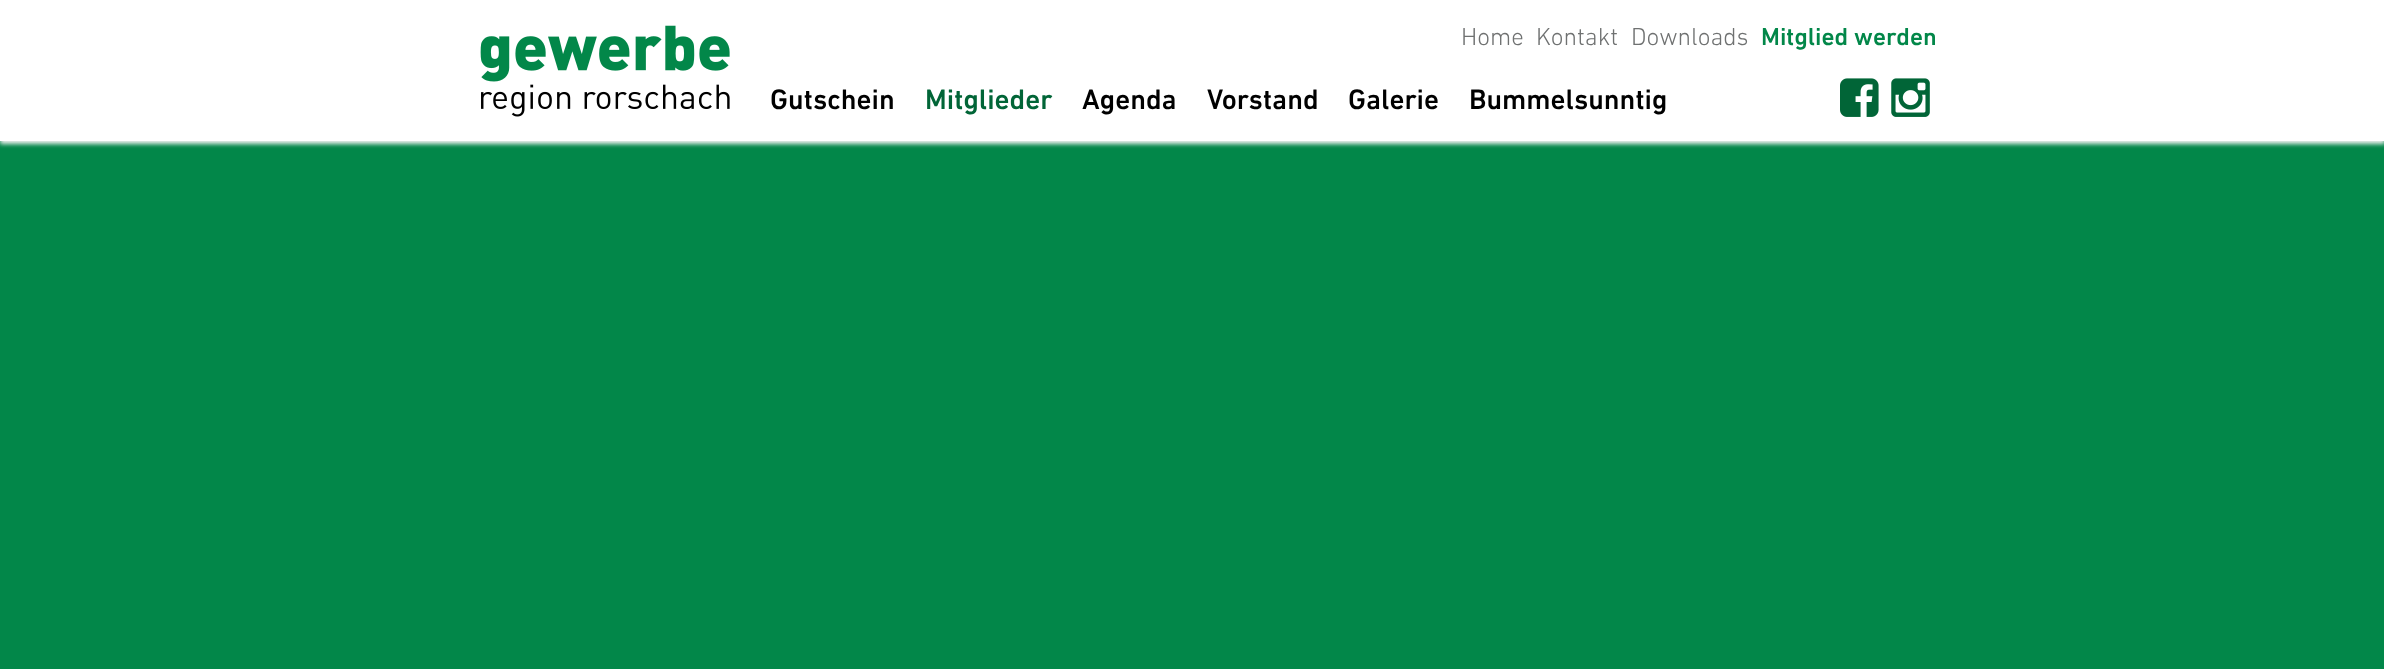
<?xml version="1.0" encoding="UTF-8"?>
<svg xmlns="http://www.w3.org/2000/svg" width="2384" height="669">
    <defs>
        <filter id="blur1" x="-50%" y="-200%" width="200%" height="500%"><feGaussianBlur stdDeviation="2"/></filter>
    </defs>
    <rect width="100%" height="100%" fill="#028749"/>
    <rect x="0" y="3" width="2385" height="141" fill="#EFEFEF" filter="url(#blur1)"/>
    <rect x="0" y="0" width="2384" height="141" fill="#FFFFFF"/>
    <image x="480" y="25" width="250" height="92" href="img_01.png"/>
    <text x="1461" y="45" font-family="DIN Next" font-size="25" font-weight="300" fill="#6F7171">Home</text>
    <text x="1536" y="45" font-family="DIN Next" font-size="25" font-weight="300" fill="#6F7171">Kontakt</text>
    <text x="1631" y="45" font-family="DIN Next" font-size="25" font-weight="300" fill="#6F7171">Downloads</text>
    <text x="1761" y="45" font-family="DIN Next" font-size="25" font-weight="500" fill="#028749">Mitglied werden</text>
    <text x="770" y="109" font-family="DIN Next" font-size="28.75" font-weight="500" fill="#000000">Gutschein</text>
    <text x="925" y="109" font-family="DIN Next" font-size="28.75" font-weight="500" fill="#016537">Mitglieder</text>
    <text x="1082" y="109" font-family="DIN Next" font-size="28.75" font-weight="500" fill="#000000">Agenda</text>
    <text x="1207" y="109" font-family="DIN Next" font-size="28.75" font-weight="500" fill="#000000">Vorstand</text>
    <text x="1348" y="109" font-family="DIN Next" font-size="28.75" font-weight="500" fill="#000000">Galerie</text>
    <text x="1469" y="109" font-family="DIN Next" font-size="28.75" font-weight="500" fill="#000000">Bummelsunntig</text>
    <image x="1840" y="78" width="39" height="39" href="img_02.png"/>
    <image x="1891" y="78" width="39" height="39" href="img_03.png"/>
</svg>
